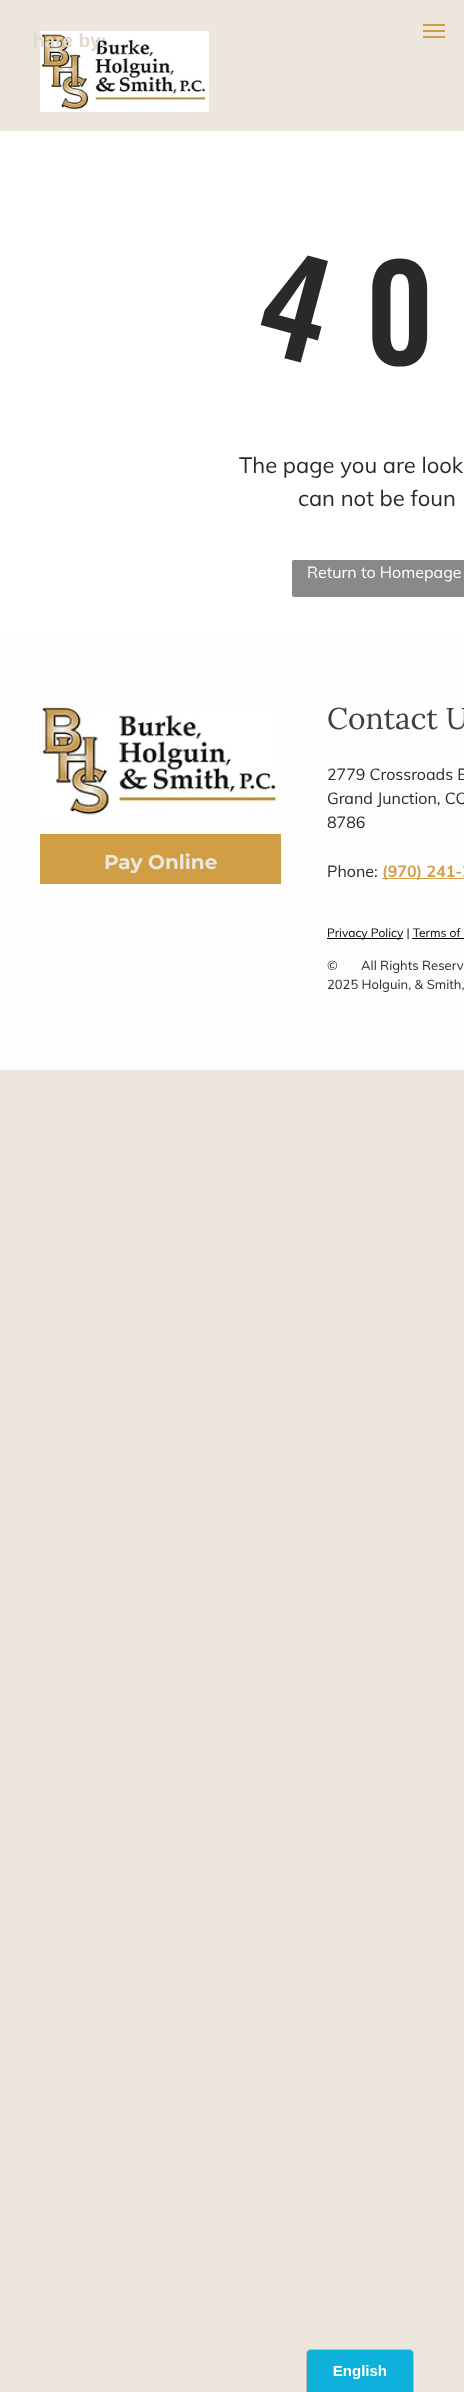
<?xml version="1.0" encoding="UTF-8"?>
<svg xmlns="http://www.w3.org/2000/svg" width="464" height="2392">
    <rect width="100%" height="100%" fill="#ECE6DC"/>
    <image x="40" y="31" width="169" height="81" href="img_01.png"/>
    <text x="33" y="47" font-family="Liberation Sans" font-size="19" font-weight="700" fill="#E2D9CC">hare by:</text>
    <rect x="423" y="24" width="22" height="2" fill="#D09E45"/>
    <rect x="423" y="30" width="22" height="2" fill="#D09E45"/>
    <rect x="423" y="36" width="22" height="2" fill="#D09E45"/>
    <rect x="0" y="131" width="464" height="501" fill="#FFFFFF"/>
    <text x="250" y="349" transform="rotate(15 250 349)" font-family="Oswald" font-size="130" font-weight="500" fill="#2B2828">4</text>
    <text x="365" y="365" font-family="Oswald" font-size="130" font-weight="500" fill="#2B2828">0</text>
    <text x="239" y="473" font-family="Muli" font-size="22" fill="#2B2828">The page you are look</text>
    <text x="298" y="506" font-family="Muli" font-size="22" fill="#2B2828">can not be foun</text>
    <rect x="292" y="560" width="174" height="37" rx="2" fill="#898989"/>
    <text x="307" y="578" font-family="Muli" font-size="16" fill="#FFFFFF">Return to Homepage</text>
    <rect x="0" y="632" width="464" height="438" fill="#FDFDFD"/>
    <image x="40" y="706" width="239" height="112" href="img_02.png"/>
    <rect x="40" y="834" width="241" height="50" fill="#D09E45"/>
    <text x="104" y="869" font-family="Montserrat" font-size="20" font-weight="700" fill="#ECE6DC">Pay Online</text>
    <text x="327" y="729" font-family="Lora" font-size="30" fill="#404040">Contact U</text>
    <text font-family="Muli" font-size="16" fill="#2B2828">
        <tspan x="327" y="780">2779 Crossroads B</tspan>
        <tspan x="327" y="804">Grand Junction, CO</tspan>
        <tspan x="327" y="828">8786</tspan>
    </text>
    <text x="327" y="877" font-family="Muli" font-size="16" fill="#2B2828">Phone:</text>
    <rect x="382" y="878" width="82" height="1" fill="#D09E45"/>
    <text x="382" y="877" font-family="Muli" font-size="16" font-weight="700" fill="#D09E45">(970) 241-2</text>
    <rect x="327" y="938" width="76" height="1" fill="#000000"/>
    <text x="327" y="937" font-family="Muli" font-size="12" fill="#000000">Privacy Policy | Terms of</text>
    <rect x="412" y="938" width="52" height="1" fill="#000000"/>
    <text font-family="Muli" font-size="13" fill="#2B2828">
        <tspan x="327" y="970">©</tspan>
        <tspan x="327" y="989">2025 Holguin, &amp; Smith,</tspan>
    </text>
    <text x="361" y="970" font-family="Muli" font-size="13" fill="#2B2828">All Rights Reserv</text>
    <image x="306" y="2349" width="108" height="43" href="img_03.png"/>
</svg>
